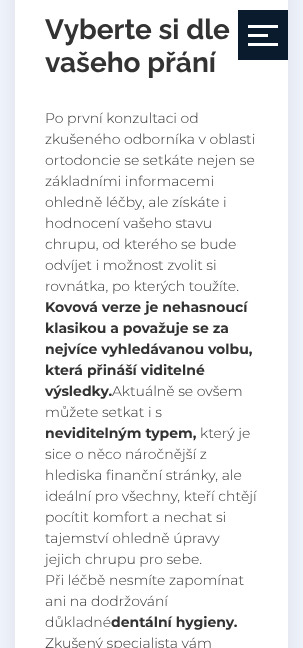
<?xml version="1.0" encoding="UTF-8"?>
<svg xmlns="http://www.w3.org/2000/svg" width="303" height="648">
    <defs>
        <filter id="blur1" x="-50%" y="-200%" width="200%" height="500%"><feGaussianBlur stdDeviation="22.5"/></filter>
    </defs>
    <rect width="100%" height="100%" fill="#F2F6FF"/>
    <rect x="30" y="-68" width="243" height="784" fill="#000000" fill-opacity="0.2" filter="url(#blur1)"/>
    <rect x="15" y="0" width="273" height="648" fill="#FFFFFF"/>
    <text font-family="Raleway" font-size="28" font-weight="700" fill="#333333">
        <tspan x="45" y="39">Vyberte si dle</tspan>
        <tspan x="45" y="72">vašeho přání</tspan>
    </text>
    <text font-family="Montserrat" font-size="14" font-weight="300" fill="#333333">
        <tspan x="45" y="123">Po první konzultaci od</tspan>
        <tspan x="45" y="144">zkušeného odborníka v oblasti</tspan>
        <tspan x="45" y="165">ortodoncie se setkáte nejen se</tspan>
        <tspan x="45" y="186">základními informacemi</tspan>
        <tspan x="45" y="207">ohledně léčby, ale získáte i</tspan>
        <tspan x="45" y="228">hodnocení vašeho stavu</tspan>
        <tspan x="45" y="249">chrupu, od kterého se bude</tspan>
        <tspan x="45" y="270">odvíjet i možnost zvolit si</tspan>
        <tspan x="45" y="291">rovnátka, po kterých toužíte.</tspan>
    </text>
    <text font-family="Montserrat" font-size="14" font-weight="700" fill="#333333">
        <tspan x="45" y="312">Kovová verze je nehasnoucí</tspan>
        <tspan x="45" y="333">klasikou a považuje se za</tspan>
        <tspan x="45" y="354">nejvíce vyhledávanou volbu,</tspan>
        <tspan x="45" y="375">která přináší viditelné</tspan>
        <tspan x="45" y="396">výsledky.</tspan>
    </text>
    <text x="112" y="396" font-family="Montserrat" font-size="14" font-weight="300" fill="#333333">Aktuálně se ovšem</text>
    <text x="45" y="417" font-family="Montserrat" font-size="14" font-weight="300" fill="#333333">můžete setkat i s</text>
    <text x="45" y="438" font-family="Montserrat" font-size="14" font-weight="700" fill="#333333">neviditelným typem,</text>
    <text x="200" y="438" font-family="Montserrat" font-size="14" font-weight="300" fill="#333333">který je</text>
    <text font-family="Montserrat" font-size="14" font-weight="300" fill="#333333">
        <tspan x="45" y="459">sice o něco náročnější z</tspan>
        <tspan x="45" y="480">hlediska finanční stránky, ale</tspan>
        <tspan x="45" y="501">ideální pro všechny, kteří chtějí</tspan>
        <tspan x="45" y="522">pocítit komfort a nechat si</tspan>
        <tspan x="45" y="543">tajemství ohledně úpravy</tspan>
        <tspan x="45" y="564">jejich chrupu pro sebe.</tspan>
        <tspan x="45" y="585">Při léčbě nesmíte zapomínat</tspan>
        <tspan x="45" y="606">ani na dodržování</tspan>
        <tspan x="45" y="627">důkladné</tspan>
    </text>
    <text x="111" y="627" font-family="Montserrat" font-size="14" font-weight="700" fill="#333333">dentální hygieny.</text>
    <text x="45" y="648" font-family="Montserrat" font-size="14" font-weight="300" fill="#333333">Zkušený specialista vám</text>
    <rect x="238" y="10" width="50" height="50" fill="#091B2C"/>
    <rect x="248" y="25" width="30" height="3" fill="#FFFFFF"/>
    <rect x="248" y="34" width="20" height="3" fill="#FFFFFF"/>
    <rect x="248" y="43" width="30" height="3" fill="#FFFFFF"/>
</svg>
